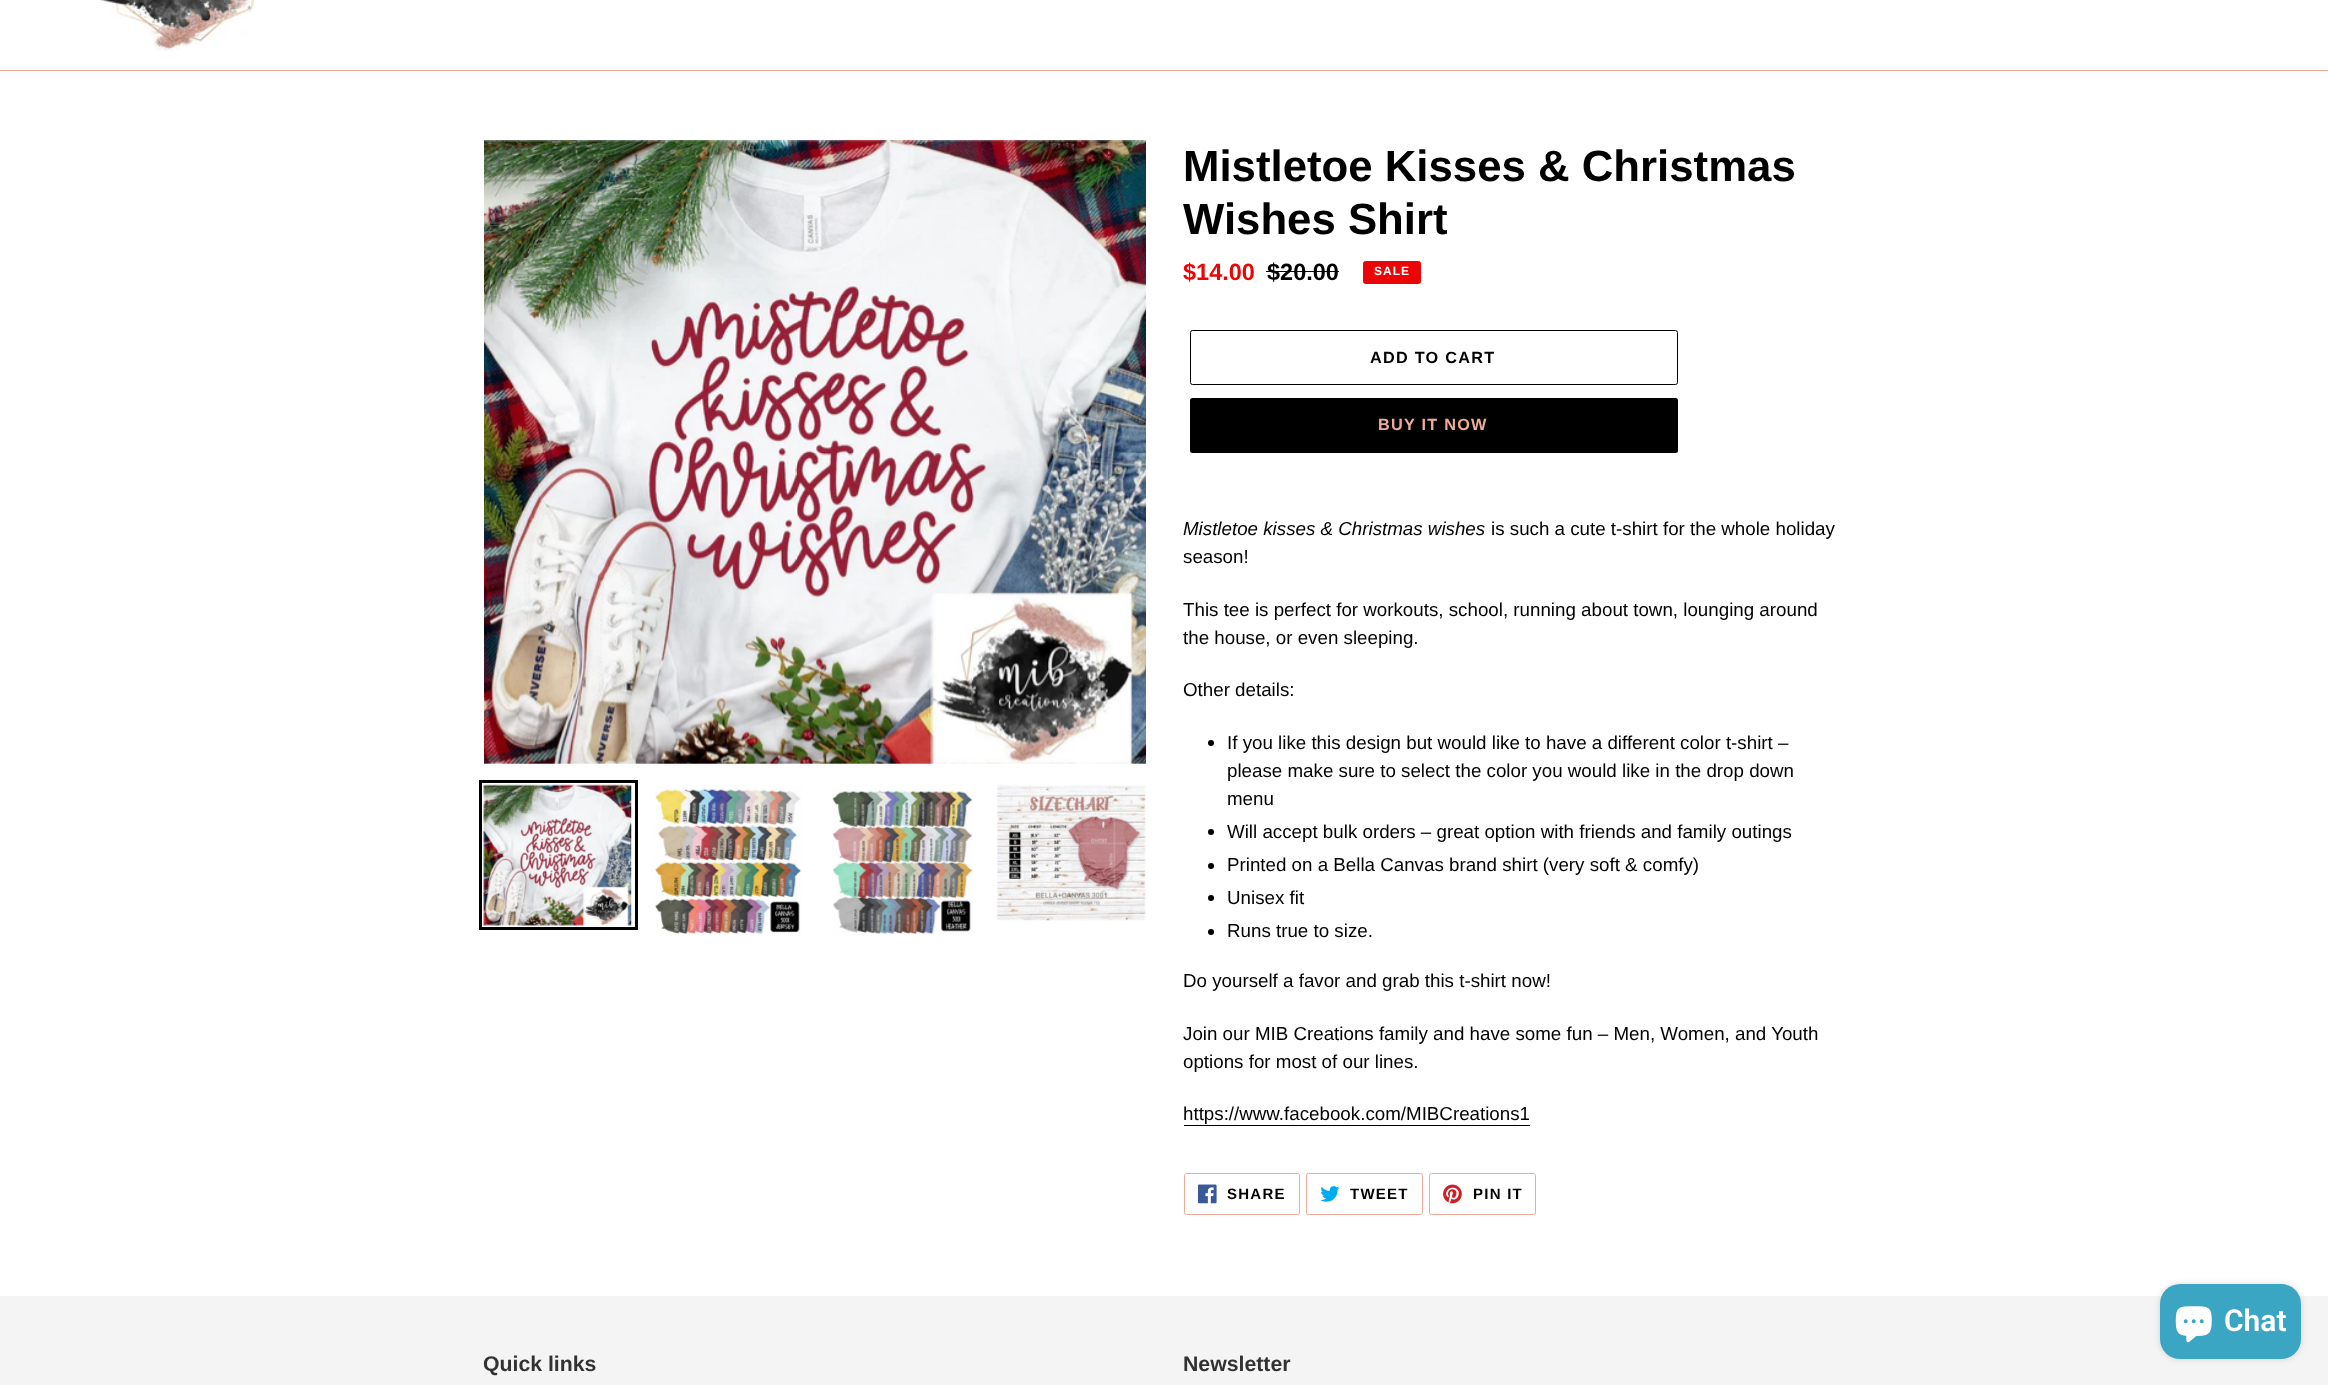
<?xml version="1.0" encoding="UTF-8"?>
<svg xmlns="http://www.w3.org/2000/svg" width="2328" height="1385">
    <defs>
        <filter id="blur1" x="-50%" y="-200%" width="200%" height="500%"><feGaussianBlur stdDeviation="3"/></filter>
    </defs>
    <rect width="100%" height="100%" fill="#FFFFFF"/>
    <rect x="0" y="70" width="2328" height="1" fill="#EEAB99"/>
    <image x="99" y="0" width="156" height="51" href="img_01.png"/>
    <image x="484" y="140" width="662" height="624" href="img_02.png"/>
    <rect x="480.5" y="781.5" width="156" height="147" fill="none" stroke="#000000" stroke-width="3"/>
    <image x="483" y="784" width="149" height="142" href="img_03.png"/>
    <image x="655" y="785" width="147" height="150" href="img_04.png"/>
    <image x="832" y="790" width="141" height="147" href="img_05.png"/>
    <image x="997" y="784" width="149" height="137" href="img_06.png"/>
    <text font-family="Liberation Sans" font-size="43.75" font-weight="700" fill="#000000">
        <tspan x="1183" y="181">Mistletoe Kisses &amp; Christmas</tspan>
        <tspan x="1183" y="234">Wishes Shirt</tspan>
    </text>
    <text x="1183" y="280" font-family="Liberation Sans" font-size="23.5" font-weight="700" fill="#EA0606">$14.00</text>
    <text x="1267" y="280" font-family="Liberation Sans" font-size="23.5" font-weight="700" fill="#000000">$20.00</text>
    <rect x="1266" y="271" width="73" height="1" fill="#000000"/>
    <rect x="1363.5" y="261.5" width="57" height="22" rx="2" fill="#EA0606" stroke="#EA0606"/>
    <text x="1374" y="275" font-family="Liberation Sans" font-size="12" font-weight="700" letter-spacing="1" fill="#FFFFFF">SALE</text>
    <rect x="1190.5" y="330.5" width="487" height="54" rx="2" fill="none" stroke="#000000"/>
    <text x="1370" y="363" font-family="Liberation Sans" font-size="16.25" font-weight="700" letter-spacing="1.25" fill="#000000">ADD TO CART</text>
    <rect x="1190" y="398" width="488" height="55" rx="2.5" fill="#000000"/>
    <text x="1378" y="430" font-family="Liberation Sans" font-size="16.25" font-weight="700" letter-spacing="1.25" fill="#EEAB99">BUY IT NOW</text>
    <text x="1183" y="535" font-family="Liberation Sans" font-size="18.75" font-style="italic" fill="#000000">Mistletoe kisses &amp; Christmas wishes</text>
    <text x="1491" y="535" font-family="Liberation Sans" font-size="18.75" fill="#000000">is such a cute t-shirt for the whole holiday</text>
    <text x="1183" y="563" font-family="Liberation Sans" font-size="18.75" fill="#000000">season!</text>
    <text font-family="Liberation Sans" font-size="18.75" fill="#000000">
        <tspan x="1183" y="616">This tee is perfect for workouts, school, running about town, lounging around</tspan>
        <tspan x="1183" y="644">the house, or even sleeping.</tspan>
    </text>
    <text x="1183" y="696" font-family="Liberation Sans" font-size="18.75" fill="#000000">Other details:</text>
    <circle cx="1211" cy="743" r="3" fill="#000000"/>
    <text font-family="Liberation Sans" font-size="18.75" fill="#000000">
        <tspan x="1227" y="749">If you like this design but would like to have a different color t-shirt –</tspan>
        <tspan x="1227" y="777">please make sure to select the color you would like in the drop down</tspan>
        <tspan x="1227" y="805">menu</tspan>
    </text>
    <circle cx="1211" cy="832" r="3" fill="#000000"/>
    <text x="1227" y="838" font-family="Liberation Sans" font-size="18.75" fill="#000000">Will accept bulk orders – great option with friends and family outings</text>
    <circle cx="1211" cy="866" r="3" fill="#000000"/>
    <text x="1227" y="871" font-family="Liberation Sans" font-size="18.75" fill="#000000">Printed on a Bella Canvas brand shirt (very soft &amp; comfy)</text>
    <circle cx="1211" cy="898" r="3" fill="#000000"/>
    <text x="1227" y="904" font-family="Liberation Sans" font-size="18.75" fill="#000000">Unisex fit</text>
    <circle cx="1211" cy="932" r="3" fill="#000000"/>
    <text x="1227" y="937" font-family="Liberation Sans" font-size="18.75" fill="#000000">Runs true to size.</text>
    <text x="1183" y="987" font-family="Liberation Sans" font-size="18.75" fill="#000000">Do yourself a favor and grab this t-shirt now!</text>
    <text font-family="Liberation Sans" font-size="18.75" fill="#000000">
        <tspan x="1183" y="1040">Join our MIB Creations family and have some fun – Men, Women, and Youth</tspan>
        <tspan x="1183" y="1068">options for most of our lines.</tspan>
    </text>
    <text x="1183" y="1120" font-family="Liberation Sans" font-size="18.75" fill="#000000">https://www.facebook.com/MIBCreations1</text>
    <rect x="1184" y="1125" width="346" height="1" fill="#000000"/>
    <rect x="1184.5" y="1173.5" width="115" height="41" rx="2" fill="none" stroke="#EEAB99"/>
    <image x="1198" y="1184" width="19" height="20" href="img_07.png"/>
    <text x="1227" y="1199" font-family="Liberation Sans" font-size="15" font-weight="700" letter-spacing="1.25" fill="#000000">SHARE</text>
    <rect x="1306.5" y="1173.5" width="116" height="41" rx="2" fill="none" stroke="#EEAB99"/>
    <image x="1320" y="1186" width="20" height="16" href="img_08.png"/>
    <text x="1350" y="1199" font-family="Liberation Sans" font-size="15" font-weight="700" letter-spacing="1.25" fill="#000000">TWEET</text>
    <rect x="1429.5" y="1173.5" width="106" height="41" rx="2" fill="none" stroke="#EEAB99"/>
    <image x="1443" y="1184" width="19" height="20" href="img_09.png"/>
    <text x="1473" y="1199" font-family="Liberation Sans" font-size="15" font-weight="700" letter-spacing="1.25" fill="#000000">PIN IT</text>
    <rect x="0" y="1296" width="2328" height="89" fill="#F4F4F4"/>
    <text x="483" y="1371" font-family="Liberation Sans" font-size="21.25" font-weight="700" fill="#333232">Quick links</text>
    <text x="1183" y="1371" font-family="Liberation Sans" font-size="21.25" font-weight="700" fill="#333232">Newsletter</text>
    <rect x="2160" y="1284" width="141" height="75" rx="20" fill="#000000" fill-opacity="0.15" filter="url(#blur1)"/>
    <rect x="2160" y="1284" width="141" height="75" rx="20" fill="#3BA6C4"/>
    <image x="2175" y="1306" width="37" height="37" href="img_10.png"/>
    <text x="2224" y="1331" font-family="Roboto" font-size="30" font-weight="600" fill="#FFFFFF">Chat</text>
</svg>
